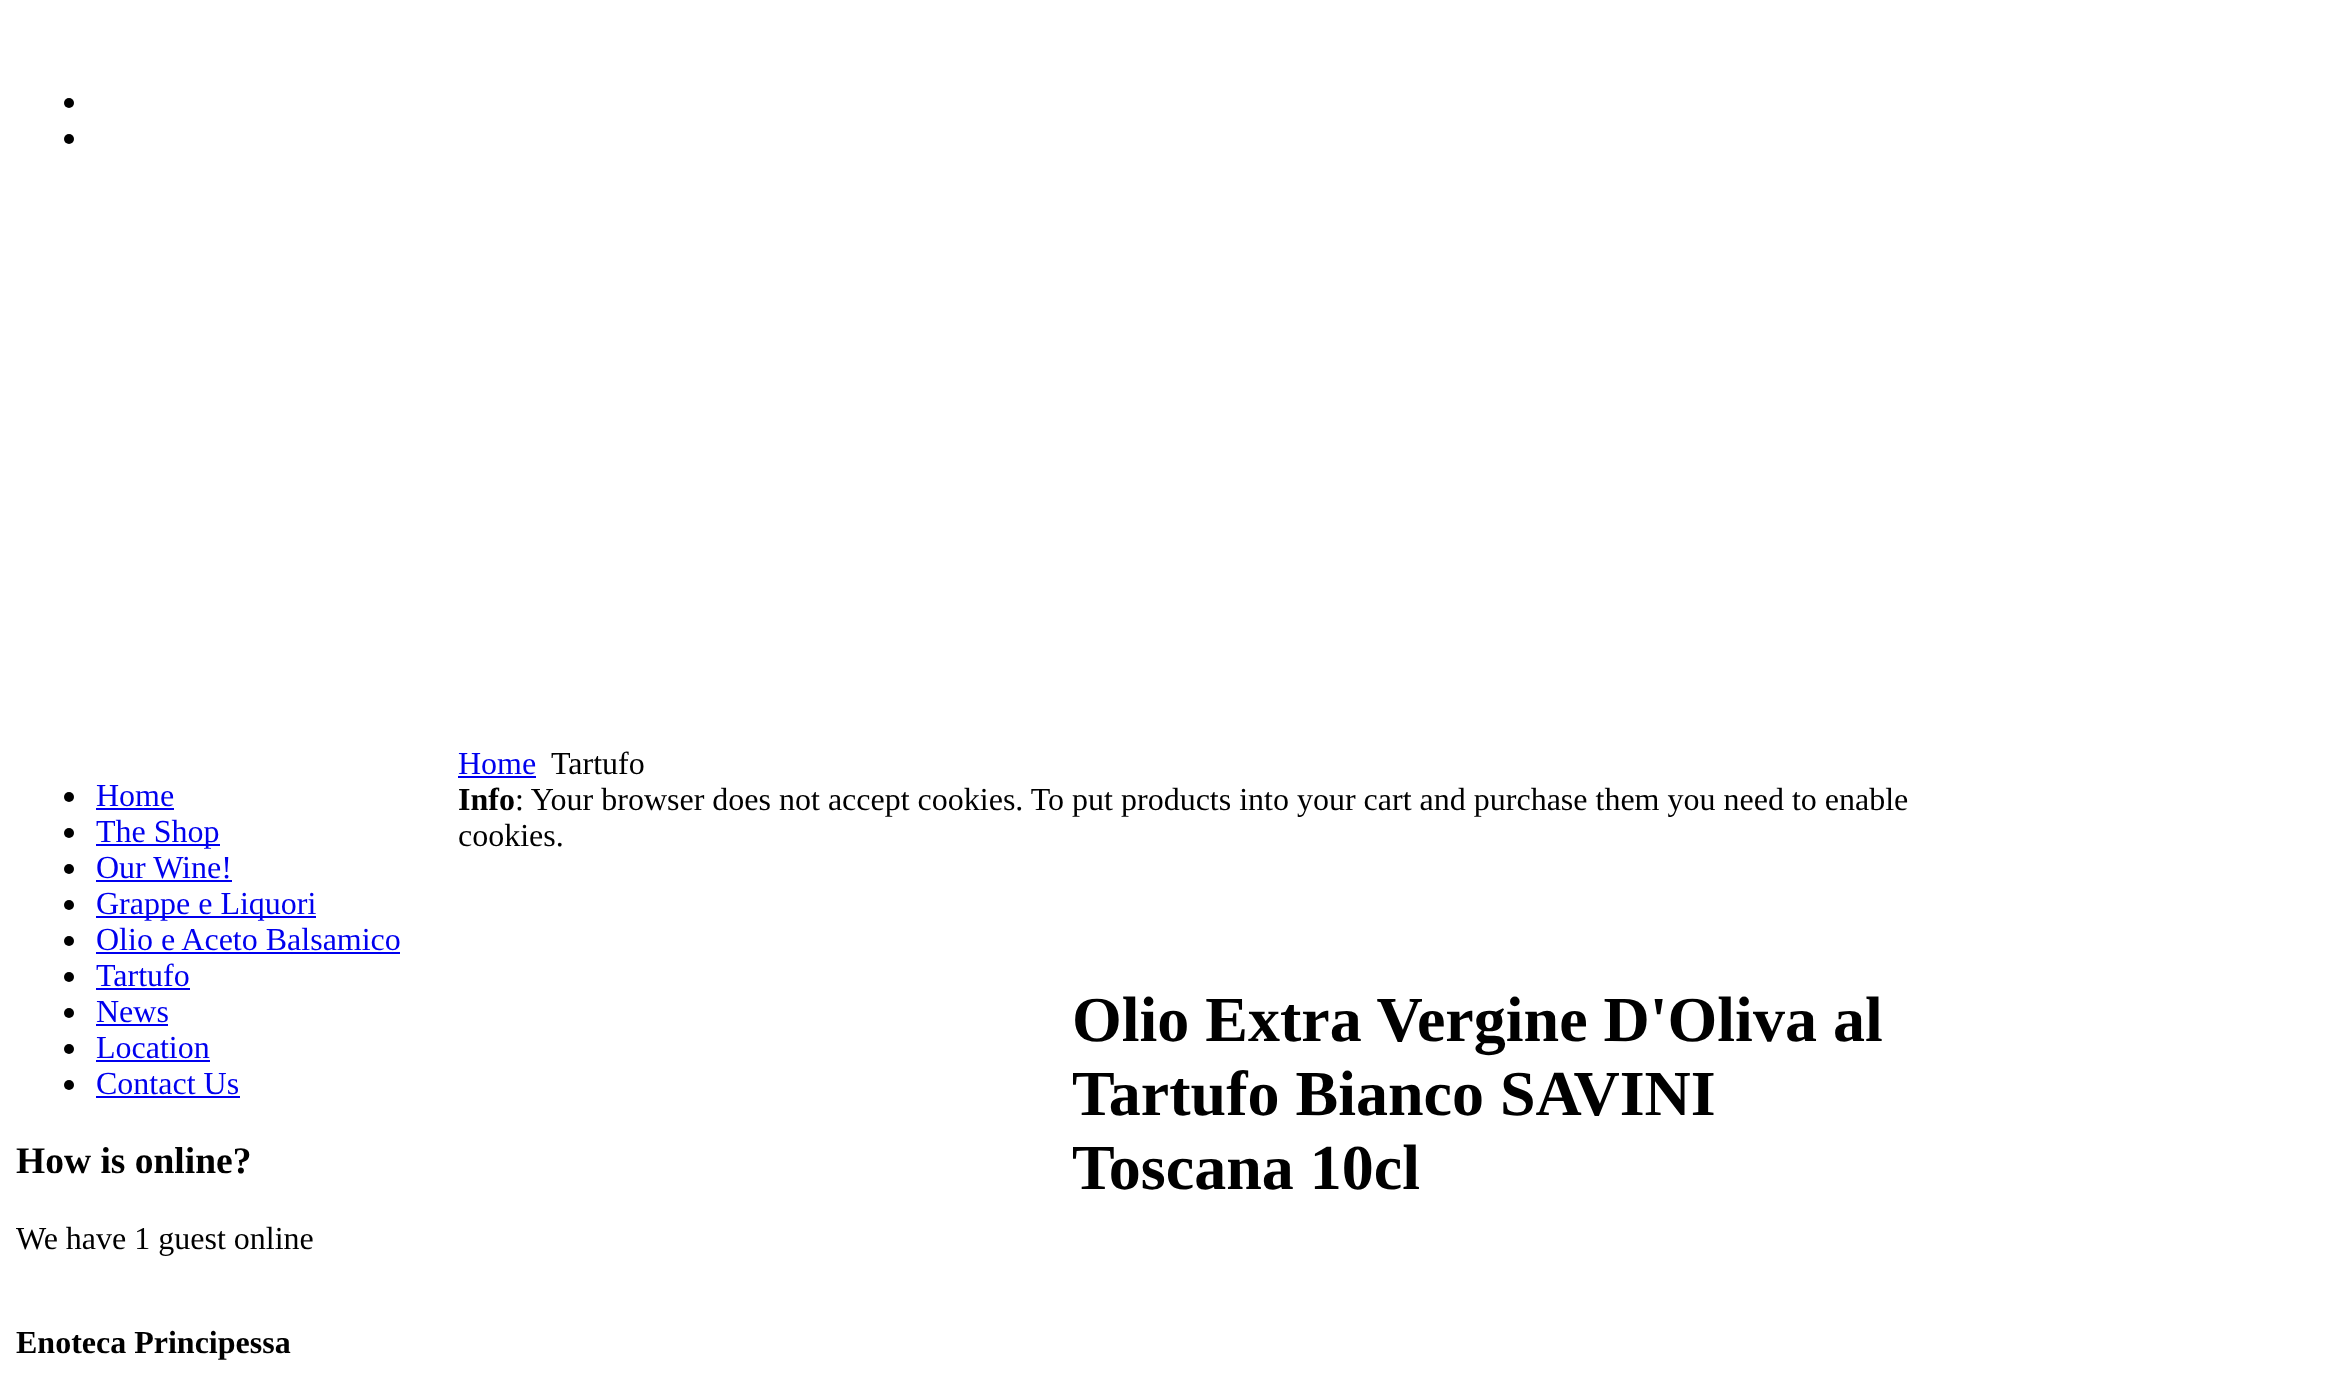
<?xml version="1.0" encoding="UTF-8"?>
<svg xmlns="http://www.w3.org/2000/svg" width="2344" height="1375">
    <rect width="100%" height="100%" fill="#FFFFFF"/>
    <circle cx="69" cy="103" r="5" fill="#000000"/>
    <circle cx="69" cy="139" r="5" fill="#000000"/>
    <circle cx="69" cy="797" r="5" fill="#000000"/>
    <text x="96" y="806" font-family="Liberation Serif" font-size="32" fill="#0000EE">Home</text>
    <rect x="96" y="808" width="78" height="2" fill="#0000EE"/>
    <circle cx="69" cy="833" r="5" fill="#000000"/>
    <rect x="96" y="844" width="124" height="2" fill="#0000EE"/>
    <text x="96" y="842" font-family="Liberation Serif" font-size="32" fill="#0000EE">The Shop</text>
    <circle cx="69" cy="869" r="5" fill="#000000"/>
    <text x="96" y="878" font-family="Liberation Serif" font-size="32" fill="#0000EE">Our Wine!</text>
    <rect x="96" y="880" width="136" height="2" fill="#0000EE"/>
    <circle cx="69" cy="905" r="5" fill="#000000"/>
    <rect x="96" y="916" width="220" height="2" fill="#0000EE"/>
    <text x="96" y="914" font-family="Liberation Serif" font-size="32" fill="#0000EE">Grappe e Liquori</text>
    <circle cx="69" cy="941" r="5" fill="#000000"/>
    <text x="96" y="950" font-family="Liberation Serif" font-size="32" fill="#0000EE">Olio e Aceto Balsamico</text>
    <rect x="96" y="952" width="304" height="2" fill="#0000EE"/>
    <circle cx="69" cy="977" r="5" fill="#000000"/>
    <text x="96" y="986" font-family="Liberation Serif" font-size="32" fill="#0000EE">Tartufo</text>
    <rect x="96" y="988" width="94" height="2" fill="#0000EE"/>
    <circle cx="69" cy="1013" r="5" fill="#000000"/>
    <text x="96" y="1022" font-family="Liberation Serif" font-size="32" fill="#0000EE">News</text>
    <rect x="96" y="1024" width="72" height="2" fill="#0000EE"/>
    <circle cx="69" cy="1049" r="5" fill="#000000"/>
    <text x="96" y="1058" font-family="Liberation Serif" font-size="32" fill="#0000EE">Location</text>
    <rect x="96" y="1060" width="114" height="2" fill="#0000EE"/>
    <circle cx="69" cy="1085" r="5" fill="#000000"/>
    <text x="96" y="1094" font-family="Liberation Serif" font-size="32" fill="#0000EE">Contact Us</text>
    <rect x="96" y="1096" width="144" height="2" fill="#0000EE"/>
    <text x="16" y="1173" font-family="Liberation Serif" font-size="37.5" font-weight="700" fill="#000000">How is online?</text>
    <text x="16" y="1249" font-family="Liberation Serif" font-size="32" fill="#000000">We have 1 guest online</text>
    <text x="16" y="1353" font-family="Liberation Serif" font-size="32" font-weight="700" fill="#000000">Enoteca Principessa</text>
    <text x="458" y="774" font-family="Liberation Serif" font-size="32" fill="#0000EE">Home</text>
    <rect x="458" y="776" width="78" height="2" fill="#0000EE"/>
    <text x="551" y="774" font-family="Liberation Serif" font-size="32" fill="#000000">Tartufo</text>
    <text x="458" y="810" font-family="Liberation Serif" font-size="32" font-weight="700" fill="#000000">Info</text>
    <text x="515" y="810" font-family="Liberation Serif" font-size="32" fill="#000000">: Your browser does not accept cookies. To put products into your cart and purchase them you need to enable</text>
    <text x="458" y="846" font-family="Liberation Serif" font-size="32" fill="#000000">cookies.</text>
    <text font-family="Liberation Serif" font-size="64" font-weight="700" fill="#000000">
        <tspan x="1072" y="1041">Olio Extra Vergine D'Oliva al</tspan>
        <tspan x="1072" y="1115">Tartufo Bianco SAVINI</tspan>
        <tspan x="1072" y="1189">Toscana 10cl</tspan>
    </text>
</svg>
